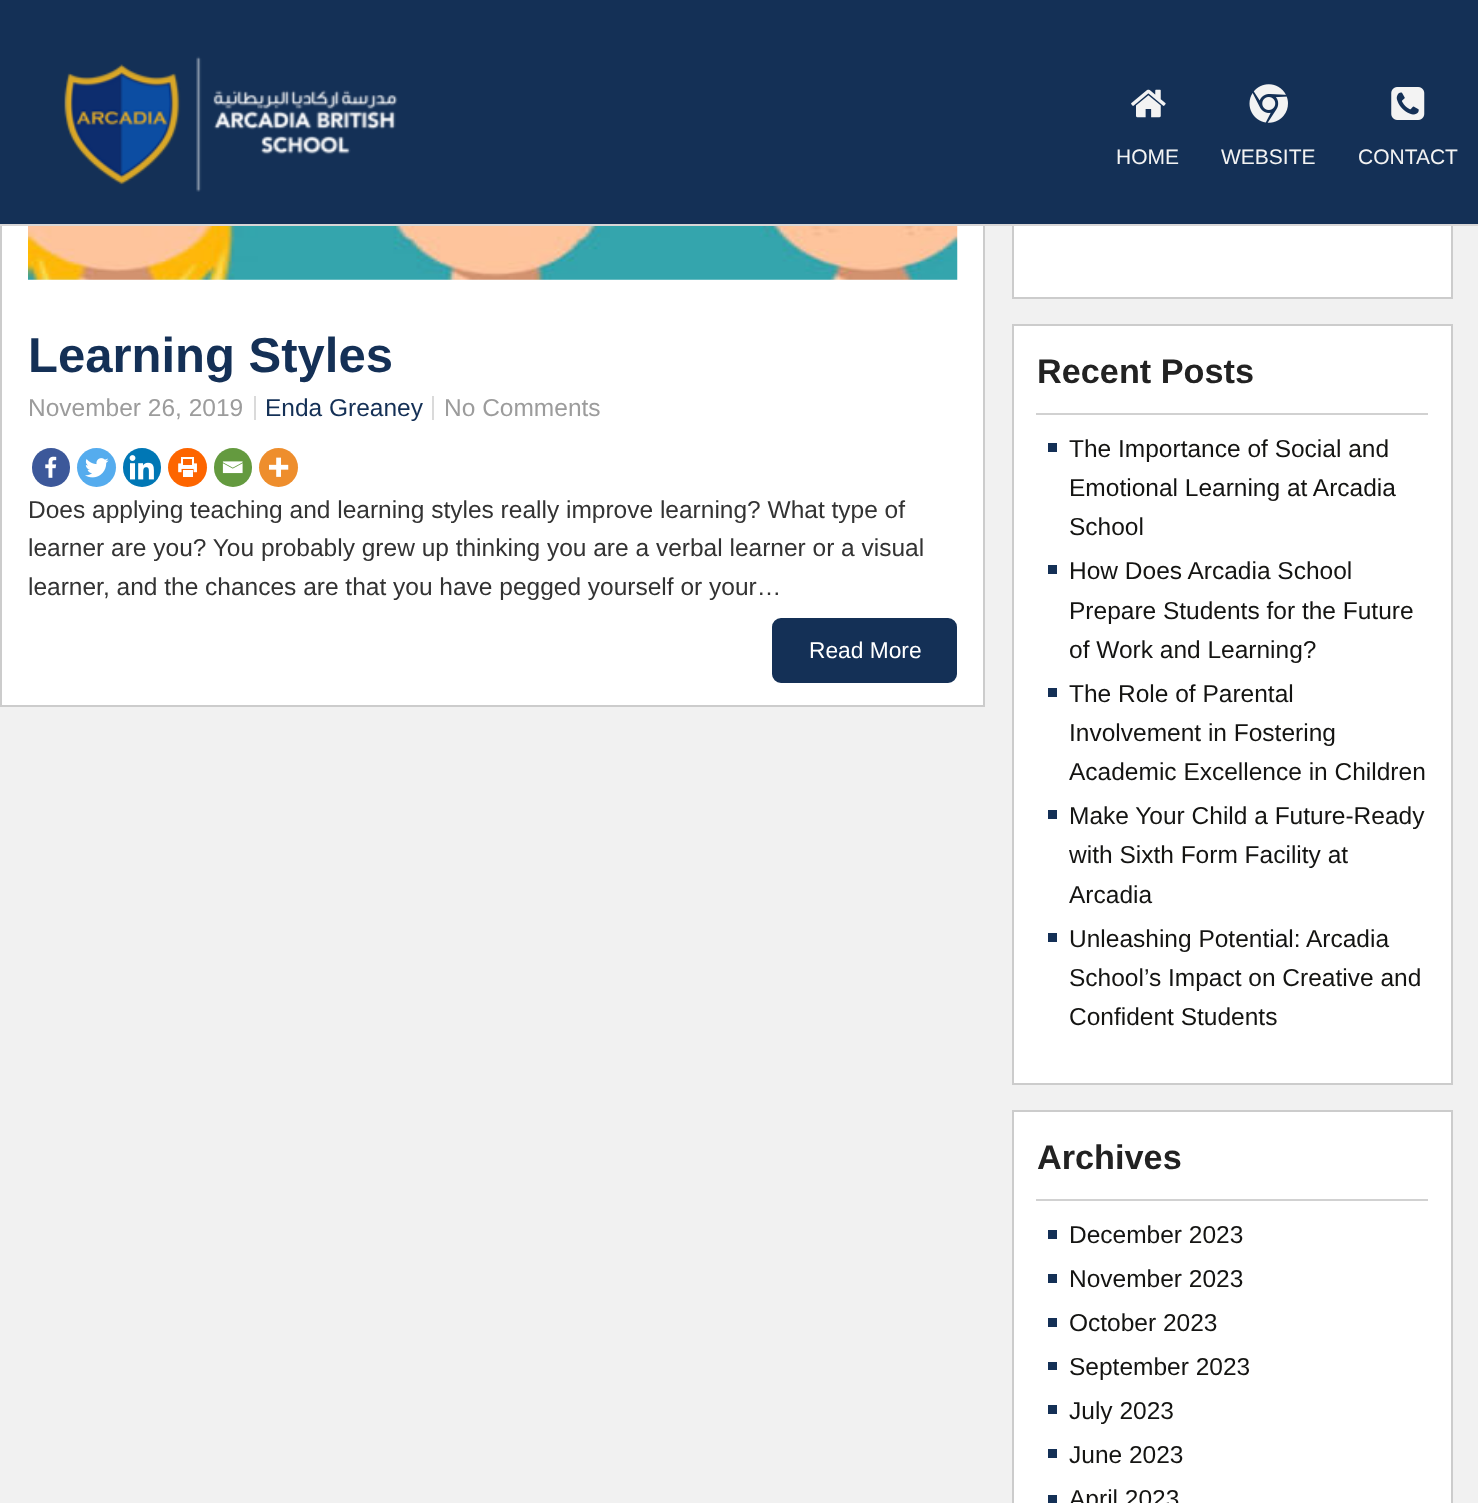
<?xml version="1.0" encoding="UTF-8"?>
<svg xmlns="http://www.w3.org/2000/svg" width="1478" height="1503">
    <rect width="100%" height="100%" fill="#F1F1F1"/>
    <rect x="2" y="226" width="981" height="479" fill="#FFFFFF"/>
    <rect x="1" y="-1" width="983" height="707" fill="none" stroke="#CCCCCC" stroke-width="2"/>
    <rect x="1014" y="226" width="437" height="71" fill="#FFFFFF"/>
    <rect x="1013" y="-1" width="439" height="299" fill="none" stroke="#CCCCCC" stroke-width="2"/>
    <rect x="0" y="0" width="1478" height="224" fill="#143056"/>
    <rect x="0" y="224" width="1478" height="2" fill="#D8D6D6"/>
    <image x="64" y="56" width="334" height="136" href="img_01.png"/>
    <image x="1131" y="89" width="35" height="29" href="img_02.png"/>
    <text x="1116" y="164" font-family="Arimo" font-size="21" fill="#F3F3F3">HOME</text>
    <image x="1249" y="84" width="39" height="39" href="img_03.png"/>
    <text x="1221" y="164" font-family="Arimo" font-size="21" fill="#F3F3F3">WEBSITE</text>
    <image x="1391" y="87" width="34" height="33" href="img_04.png"/>
    <text x="1358" y="164" font-family="Arimo" font-size="21" fill="#F3F3F3">CONTACT</text>
    <image x="28" y="226" width="930" height="54" href="img_05.png"/>
    <text x="28" y="372" font-family="Liberation Sans" font-size="49" font-weight="700" fill="#143056">Learning Styles</text>
    <text x="28" y="416" font-family="Arimo" font-size="24.5" fill="#9C9C9C">November 26, 2019</text>
    <rect x="254" y="396" width="2" height="24" fill="#DADADA"/>
    <text x="265" y="416" font-family="Arimo" font-size="24.5" fill="#143056">Enda Greaney</text>
    <rect x="432" y="396" width="2" height="24" fill="#DADADA"/>
    <text x="444" y="416" font-family="Arimo" font-size="24.5" fill="#9C9C9C">No Comments</text>
    <rect x="32" y="448" width="38" height="39" rx="19" fill="#3C589A"/>
    <image x="45" y="456" width="12" height="22" href="img_06.png"/>
    <circle cx="96.5" cy="467.5" r="19.5" fill="#55ACEE"/>
    <image x="85" y="458" width="24" height="20" href="img_07.png"/>
    <rect x="123" y="448" width="38" height="39" rx="19" fill="#0077B5"/>
    <image x="129" y="455" width="25" height="25" href="img_08.png"/>
    <circle cx="187.5" cy="467.5" r="19.5" fill="#FD6500"/>
    <image x="178" y="457" width="19" height="20" href="img_09.png"/>
    <rect x="214" y="448" width="38" height="39" rx="19" fill="#649A3F"/>
    <image x="222" y="461" width="21" height="13" href="img_10.png"/>
    <circle cx="278.5" cy="467.5" r="19.5" fill="#EE8E2D"/>
    <image x="269" y="457" width="20" height="20" href="img_11.png"/>
    <text font-family="Arimo" font-size="24.5" fill="#333333">
        <tspan x="28" y="518">Does applying teaching and learning styles really improve learning? What type of</tspan>
        <tspan x="28" y="556">learner are you? You probably grew up thinking you are a verbal learner or a visual</tspan>
        <tspan x="28" y="595">learner, and the chances are that you have pegged yourself or your…</tspan>
    </text>
    <rect x="773" y="619" width="183" height="63" rx="8" fill="#143056" stroke="#143056" stroke-width="2"/>
    <text x="809" y="658" font-family="Liberation Sans" font-size="22.75" fill="#FFFFFF">Read More</text>
    <rect x="1013" y="325" width="439" height="759" fill="#FFFFFF" stroke="#CCCCCC" stroke-width="2"/>
    <rect x="1036" y="413" width="392" height="2" fill="#D1D1D1"/>
    <text x="1037" y="383" font-family="Liberation Sans" font-size="34.25" font-weight="700" fill="#222222">Recent Posts</text>
    <rect x="1048" y="443" width="9" height="9" fill="#143056"/>
    <text font-family="Arimo" font-size="24.5" fill="#141412">
        <tspan x="1069" y="457">The Importance of Social and</tspan>
        <tspan x="1069" y="496">Emotional Learning at Arcadia</tspan>
        <tspan x="1069" y="535">School</tspan>
    </text>
    <rect x="1048" y="565" width="9" height="9" fill="#143056"/>
    <text font-family="Arimo" font-size="24.5" fill="#141412">
        <tspan x="1069" y="579">How Does Arcadia School</tspan>
        <tspan x="1069" y="619">Prepare Students for the Future</tspan>
        <tspan x="1069" y="658">of Work and Learning?</tspan>
    </text>
    <rect x="1048" y="688" width="9" height="9" fill="#143056"/>
    <text font-family="Arimo" font-size="24.5" fill="#141412">
        <tspan x="1069" y="702">The Role of Parental</tspan>
        <tspan x="1069" y="741">Involvement in Fostering</tspan>
        <tspan x="1069" y="780">Academic Excellence in Children</tspan>
    </text>
    <rect x="1048" y="810" width="9" height="9" fill="#143056"/>
    <text font-family="Arimo" font-size="24.5" fill="#141412">
        <tspan x="1069" y="824">Make Your Child a Future-Ready</tspan>
        <tspan x="1069" y="863">with Sixth Form Facility at</tspan>
        <tspan x="1069" y="903">Arcadia</tspan>
    </text>
    <rect x="1048" y="933" width="9" height="9" fill="#143056"/>
    <text font-family="Arimo" font-size="24.5" fill="#141412">
        <tspan x="1069" y="947">Unleashing Potential: Arcadia</tspan>
        <tspan x="1069" y="986">School’s Impact on Creative and</tspan>
        <tspan x="1069" y="1025">Confident Students</tspan>
    </text>
    <rect x="1013" y="1111" width="439" height="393" fill="#FFFFFF" stroke="#CCCCCC" stroke-width="2"/>
    <rect x="1036" y="1199" width="392" height="2" fill="#D1D1D1"/>
    <text x="1037" y="1169" font-family="Liberation Sans" font-size="34.25" font-weight="700" fill="#222222">Archives</text>
    <rect x="1048" y="1230" width="9" height="9" fill="#143056"/>
    <text x="1069" y="1243" font-family="Arimo" font-size="24.5" fill="#141412">December 2023</text>
    <rect x="1048" y="1274" width="9" height="9" fill="#143056"/>
    <text x="1069" y="1287" font-family="Arimo" font-size="24.5" fill="#141412">November 2023</text>
    <rect x="1048" y="1318" width="9" height="9" fill="#143056"/>
    <text x="1069" y="1331" font-family="Arimo" font-size="24.5" fill="#141412">October 2023</text>
    <rect x="1048" y="1362" width="9" height="8" fill="#143056"/>
    <text x="1069" y="1375" font-family="Arimo" font-size="24.5" fill="#141412">September 2023</text>
    <rect x="1048" y="1405" width="9" height="9" fill="#143056"/>
    <text x="1069" y="1419" font-family="Arimo" font-size="24.5" fill="#141412">July 2023</text>
    <rect x="1048" y="1449" width="9" height="9" fill="#143056"/>
    <text x="1069" y="1463" font-family="Arimo" font-size="24.5" fill="#141412">June 2023</text>
    <rect x="1048" y="1495" width="9" height="8" fill="#143056"/>
    <text x="1069" y="1507" font-family="Arimo" font-size="24.5" fill="#141412">April 2023</text>
</svg>
